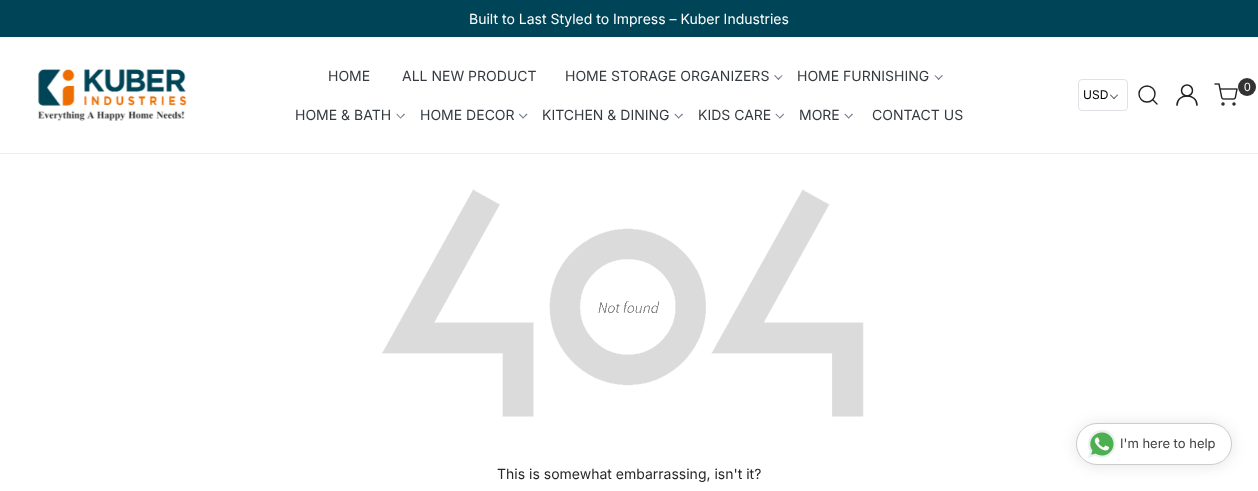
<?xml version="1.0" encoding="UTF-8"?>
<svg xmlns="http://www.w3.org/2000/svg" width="1258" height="491">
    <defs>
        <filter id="blur1" x="-50%" y="-200%" width="200%" height="500%"><feGaussianBlur stdDeviation="7.5"/></filter>
    </defs>
    <rect width="100%" height="100%" fill="#FFFFFF"/>
    <rect x="0" y="0" width="1258" height="37" fill="#004557"/>
    <text x="469" y="24" font-family="Inter" font-size="14" fill="#FFFFFF">Built to Last Styled to Impress – Kuber Industries</text>
    <rect x="0" y="153" width="1258" height="1" fill="#EEEEEE"/>
    <image x="38" y="69" width="149" height="52" href="img_01.png"/>
    <text x="328" y="81" font-family="Inter" font-size="14" fill="#343A40">HOME</text>
    <text x="402" y="81" font-family="Inter" font-size="14" fill="#343A40">ALL NEW PRODUCT</text>
    <text x="565" y="81" font-family="Inter" font-size="14" fill="#343A40">HOME STORAGE ORGANIZERS</text>
    <path d="M 782 75 L 782.5 75.5 L 778.5 80 L 777.5 79 Z" fill="#70798B"/>
    <path d="M 775 75 L 779 79 L 778.5 80 L 774 75.5 Z" fill="#70798B"/>
    <text x="797" y="81" font-family="Inter" font-size="14" fill="#343A40">HOME FURNISHING</text>
    <path d="M 942 75 L 943 75.5 L 938.5 80 L 938 79 Z" fill="#70798B"/>
    <path d="M 935 75 L 939.5 79 L 938.5 80 L 934.5 75.5 Z" fill="#70798B"/>
    <text x="295" y="120" font-family="Inter" font-size="14" fill="#343A40">HOME &amp; BATH</text>
    <path d="M 404 113.5 L 405 114.5 L 400.5 118.5 L 400 118 Z" fill="#70798B"/>
    <path d="M 397 113.5 L 401 118 L 400.5 118.5 L 396.5 114.5 Z" fill="#70798B"/>
    <text x="420" y="120" font-family="Inter" font-size="14" fill="#343A40">HOME DECOR</text>
    <path d="M 526.5 113.5 L 527.5 114.5 L 523 118.5 L 522.5 118 Z" fill="#70798B"/>
    <path d="M 519.5 113.5 L 524 118 L 523 118.5 L 519 114.5 Z" fill="#70798B"/>
    <text x="542" y="120" font-family="Inter" font-size="14" fill="#343A40">KITCHEN &amp; DINING</text>
    <path d="M 682 113.5 L 683 114.5 L 678.5 118.5 L 678 118 Z" fill="#70798B"/>
    <path d="M 675 113.5 L 679.5 118 L 678.5 118.5 L 674.5 114.5 Z" fill="#70798B"/>
    <text x="698" y="120" font-family="Inter" font-size="14" fill="#343A40">KIDS CARE</text>
    <path d="M 783.5 113.5 L 784 114.5 L 780 118.5 L 779 118 Z" fill="#70798B"/>
    <path d="M 776 113.5 L 780.5 118 L 780 118.5 L 775.5 114.5 Z" fill="#70798B"/>
    <text x="799" y="120" font-family="Inter" font-size="14" fill="#343A40">MORE</text>
    <path d="M 852 113.5 L 853 114.5 L 848.5 118.5 L 848 118 Z" fill="#70798B"/>
    <path d="M 845 113.5 L 849.5 118 L 848.5 118.5 L 844.5 114.5 Z" fill="#70798B"/>
    <text x="872" y="120" font-family="Inter" font-size="14" fill="#343A40">CONTACT US</text>
    <rect x="1078.5" y="79.5" width="49" height="31" rx="3.5" fill="none" stroke="#DEE2E6"/>
    <text x="1083" y="99" font-family="Inter" font-size="12" fill="#000000">USD</text>
    <path d="M 1117.5 94.5 L 1118 95 L 1114 99 L 1113.5 98.5 Z" fill="#222222"/>
    <path d="M 1110.5 94.5 L 1114.5 98.5 L 1114 99 L 1110 95 Z" fill="#222222"/>
    <circle cx="1147" cy="94" r="8" fill="none" stroke="#212121" stroke-width="1.4"/>
    <path d="M 1157 104 L 1152.5 99.5" fill="none" stroke="#212121" stroke-width="1.4" stroke-linecap="round" stroke-linejoin="round"/>
    <path d="M 1177 105 C 1177 93 1197 93 1197 105" fill="none" stroke="#212121" stroke-width="1.5" stroke-linecap="square"/>
    <circle cx="1187" cy="90.5" r="5.5" fill="none" stroke="#212121" stroke-width="1.5"/>
    <image x="1214" y="83" width="24" height="23" href="img_02.png"/>
    <circle cx="1247" cy="87" r="9" fill="#333333"/>
    <text x="1244" y="91" font-family="Liberation Sans" font-size="12" fill="#FFFFFF">0</text>
    <rect x="1076" y="424" width="156" height="42" rx="21" fill="#202124" fill-opacity="0.1" filter="url(#blur1)"/>
    <rect x="1076.5" y="423.5" width="155" height="41" rx="20.5" fill="#FFFFFF" stroke="#CCCCCC"/>
    <image x="1088" y="430" width="28" height="28" href="img_03.png"/>
    <text x="1120" y="448" font-family="Inter" font-size="13" fill="#404040">I'm here to help</text>
    <image x="381" y="189" width="483" height="228" href="img_04.png"/>
    <text x="497" y="479" font-family="Inter" font-size="14" fill="#282828">This is somewhat embarrassing, isn't it?</text>
</svg>
